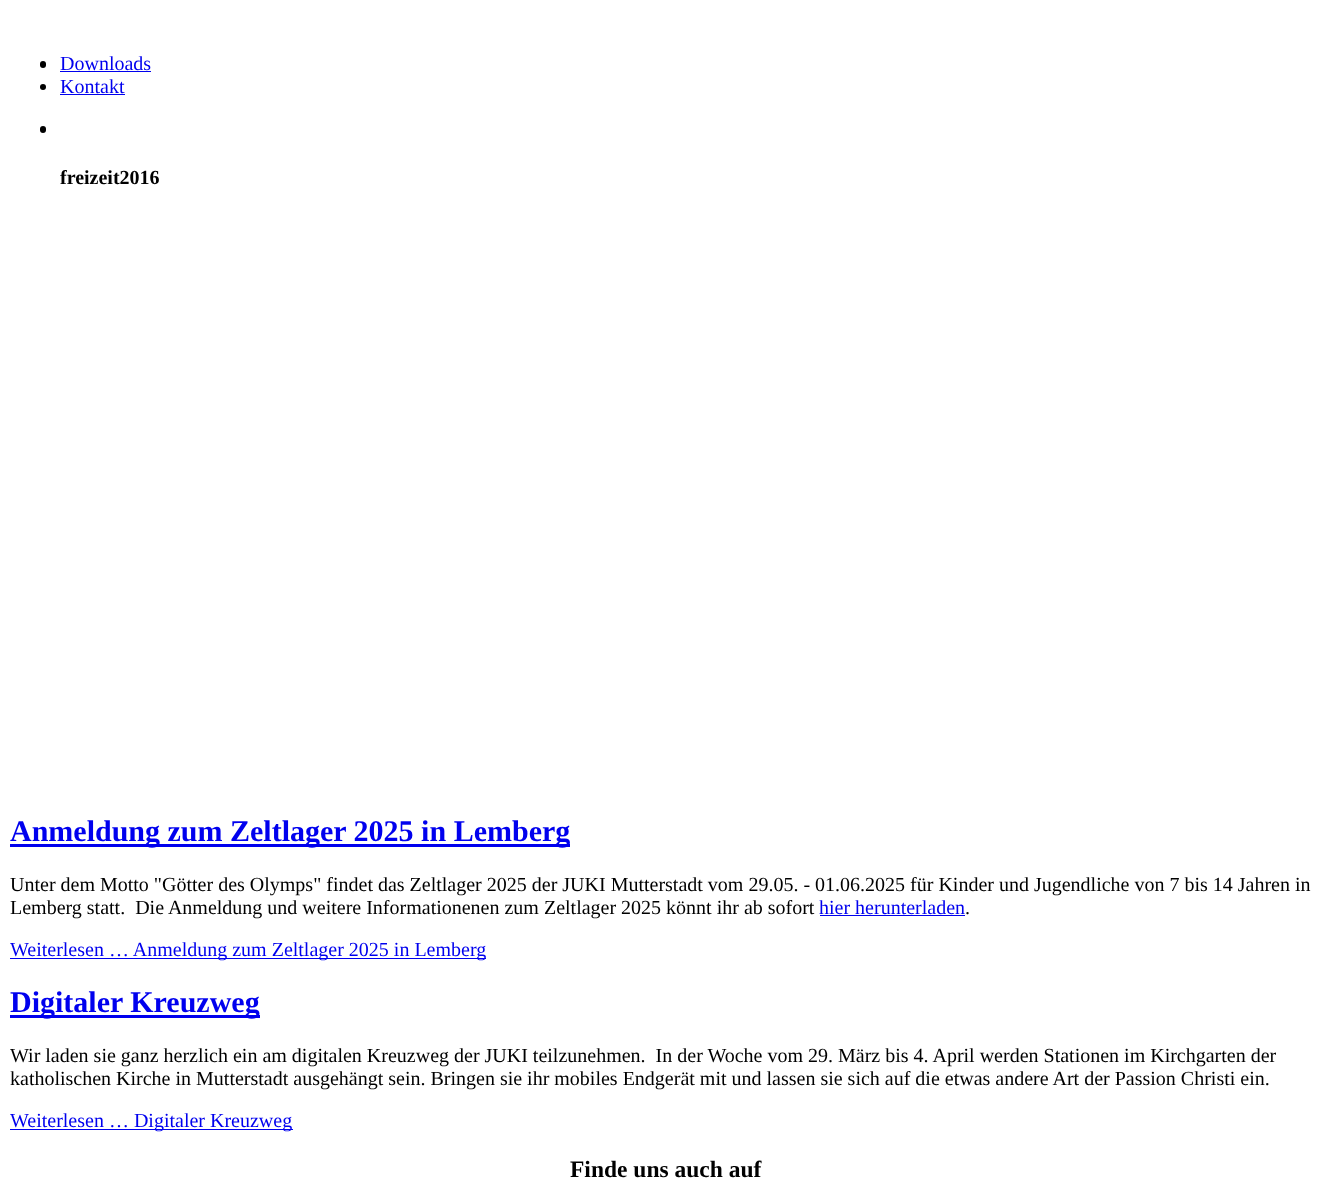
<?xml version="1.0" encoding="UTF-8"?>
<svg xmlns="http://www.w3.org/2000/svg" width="1329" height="1180">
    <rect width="100%" height="100%" fill="#FFFFFF"/>
    <rect x="40" y="61" width="6" height="7" rx="3" fill="#000000"/>
    <text x="60" y="70" font-family="Liberation Serif" font-size="20" fill="#0000EE">Downloads</text>
    <rect x="60" y="71" width="91" height="1" fill="#0000EE"/>
    <circle cx="43" cy="87" r="3" fill="#000000"/>
    <text x="60" y="93" font-family="Liberation Serif" font-size="20" fill="#0000EE">Kontakt</text>
    <rect x="60" y="94" width="65" height="1" fill="#0000EE"/>
    <rect x="40" y="126" width="6" height="7" rx="3" fill="#000000"/>
    <text x="60" y="184" font-family="Liberation Serif" font-size="20" font-weight="700" fill="#000000">freizeit2016</text>
    <rect x="10" y="844" width="560" height="3" fill="#0000EE"/>
    <text x="10" y="841" font-family="Liberation Serif" font-size="30" font-weight="700" fill="#0000EE">Anmeldung zum Zeltlager 2025 in Lemberg</text>
    <text font-family="Liberation Serif" font-size="20" fill="#000000" xml:space="preserve"><tspan x="10" y="891">Unter dem Motto "Götter des Olymps" findet das Zeltlager 2025 der JUKI Mutterstadt vom 29.05. - 01.06.2025 für Kinder und Jugendliche von 7 bis 14 Jahren in</tspan><tspan x="10" y="914">Lemberg statt.  Die Anmeldung und weitere Informationenen zum Zeltlager 2025 könnt ihr ab sofort</tspan></text>
    <text x="819" y="914" font-family="Liberation Serif" font-size="20" fill="#0000EE">hier herunterladen</text>
    <rect x="820" y="915" width="145" height="1" fill="#0000EE"/>
    <text x="965" y="914" font-family="Liberation Serif" font-size="20" fill="#000000">.</text>
    <rect x="10" y="958" width="476" height="1" fill="#0000EE"/>
    <text x="10" y="956" font-family="Liberation Serif" font-size="20" fill="#0000EE">Weiterlesen … Anmeldung zum Zeltlager 2025 in Lemberg</text>
    <rect x="10" y="1015" width="250" height="3" fill="#0000EE"/>
    <text x="10" y="1012" font-family="Liberation Serif" font-size="30" font-weight="700" fill="#0000EE">Digitaler Kreuzweg</text>
    <text font-family="Liberation Serif" font-size="20" fill="#000000" xml:space="preserve"><tspan x="10" y="1062">Wir laden sie ganz herzlich ein am digitalen Kreuzweg der JUKI teilzunehmen.  In der Woche vom 29. März bis 4. April werden Stationen im Kirchgarten der</tspan><tspan x="10" y="1085">katholischen Kirche in Mutterstadt ausgehängt sein. Bringen sie ihr mobiles Endgerät mit und lassen sie sich auf die etwas andere Art der Passion Christi ein.</tspan></text>
    <rect x="10" y="1129" width="283" height="1" fill="#0000EE"/>
    <text x="10" y="1127" font-family="Liberation Serif" font-size="20" fill="#0000EE">Weiterlesen … Digitaler Kreuzweg</text>
    <text x="570" y="1177" font-family="Liberation Serif" font-size="23.5" font-weight="700" fill="#000000">Finde uns auch auf</text>
</svg>
